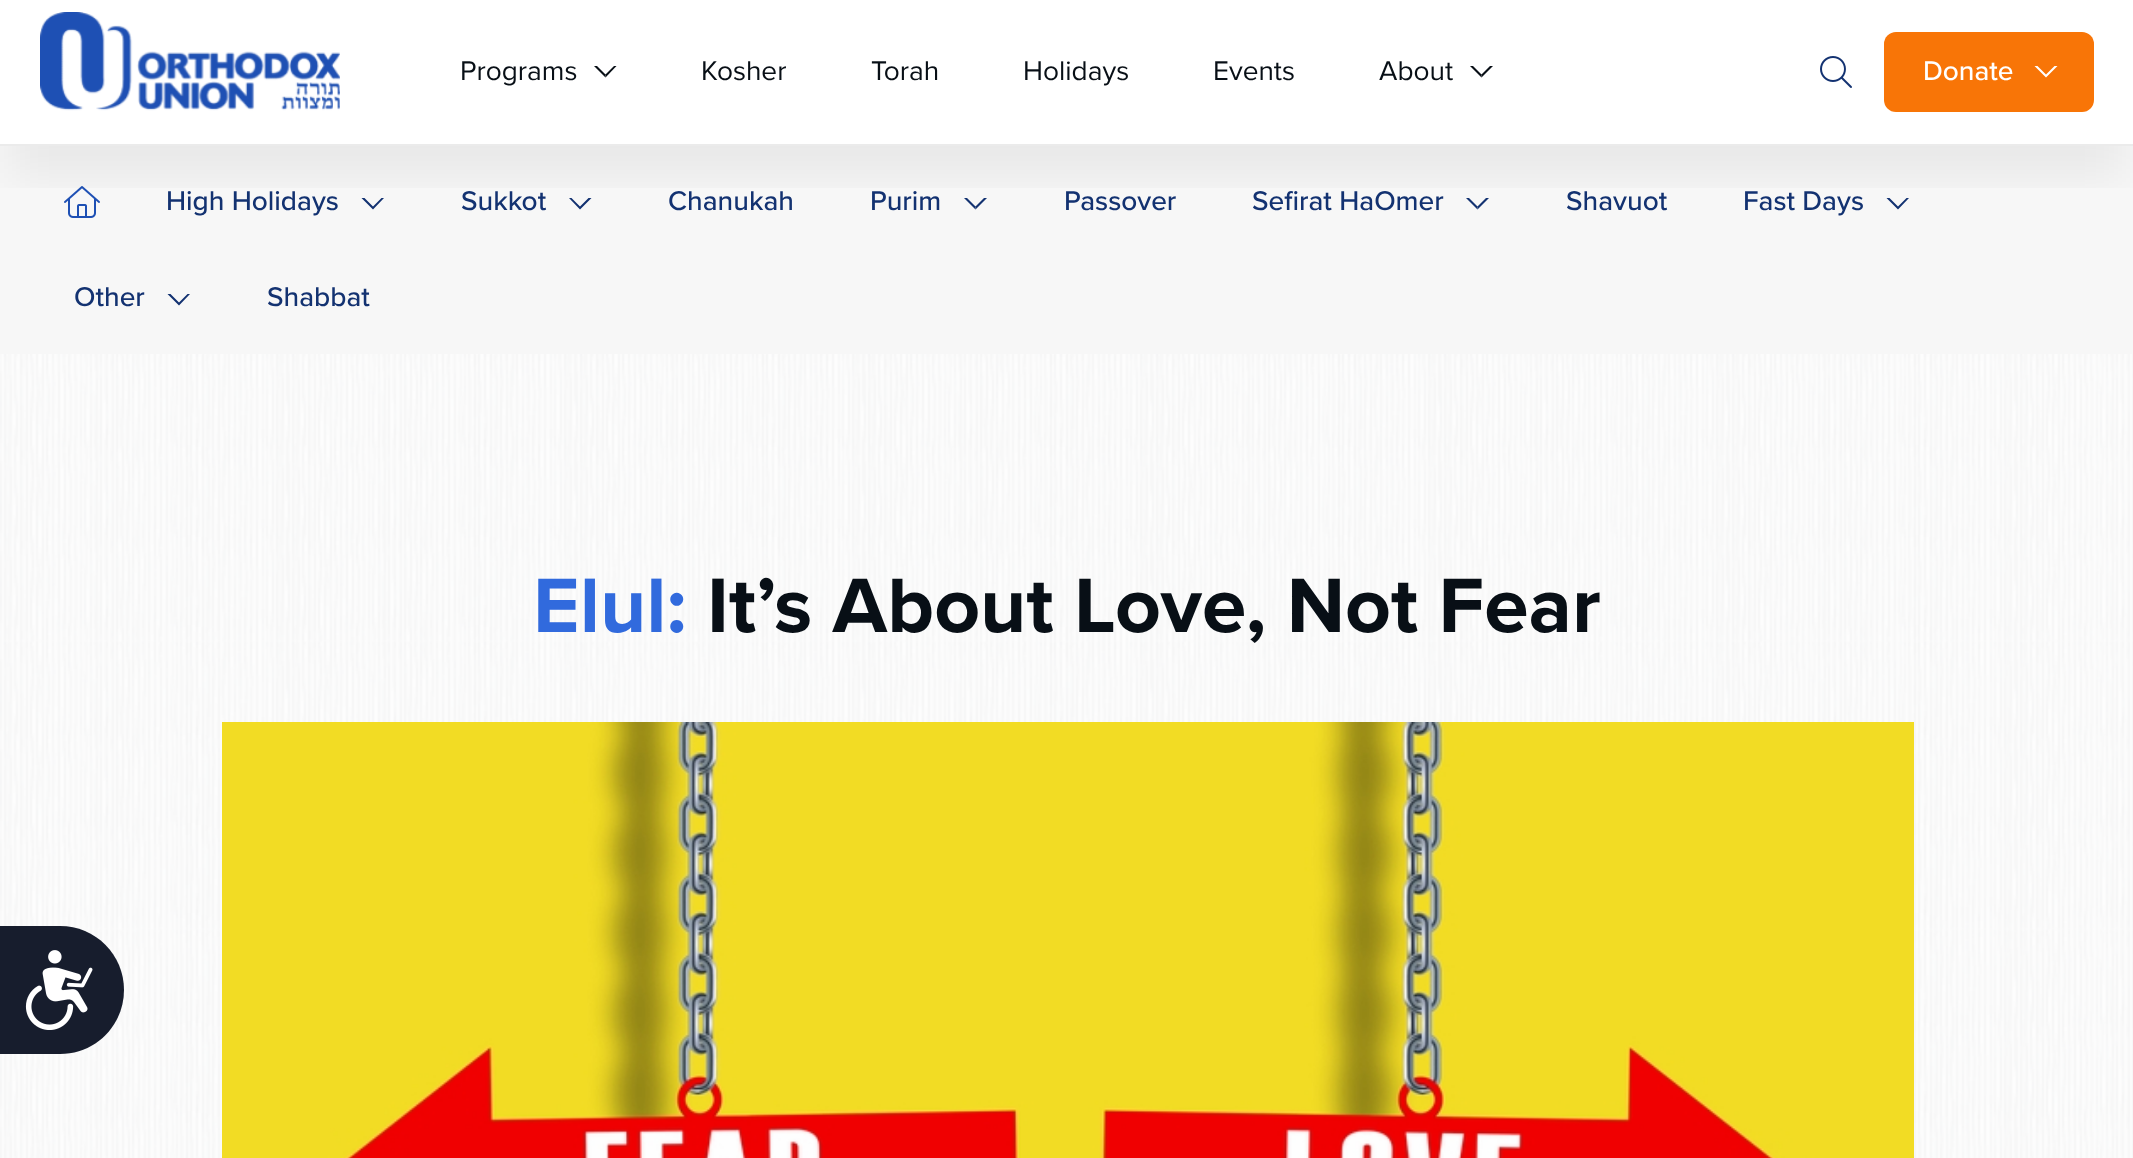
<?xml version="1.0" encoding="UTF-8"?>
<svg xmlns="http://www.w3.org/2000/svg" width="2133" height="1158">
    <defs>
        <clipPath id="clip1"><rect x="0" y="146" width="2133" height="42"/></clipPath>
        <filter id="blur1" x="-50%" y="-200%" width="200%" height="500%"><feGaussianBlur stdDeviation="24"/></filter>
    </defs>
    <rect width="100%" height="100%" fill="#FFFFFF"/>
    <rect x="0" y="146" width="2133" height="208" fill="#F7F7F7"/>
    <image x="64" y="186" width="36" height="32" href="img_03.png"/>
    <path d="M 384 198 L 373 209.5 V 206.5 L 381.5 198 Z M 373 209.5 L 361.5 198 H 364.5 L 373 206.5 Z" fill="#133271"/>
    <path d="M 591.5 198 L 580 209.5 V 206.5 L 588.5 198 Z M 580 209.5 L 569 198 H 571.5 L 580 206.5 Z" fill="#133271"/>
    <path d="M 987 198 L 975.5 209.5 V 206.5 L 984 198 Z" fill="#133271"/>
    <path d="M 975.5 209.5 L 964 198 H 967 L 975.5 206.5 Z" fill="#133271"/>
    <path d="M 1489 198 L 1477.5 209.5 V 206.5 L 1486 198 Z" fill="#133271"/>
    <path d="M 1477.5 209.5 L 1466 198 H 1469 L 1477.5 206.5 Z" fill="#133271"/>
    <path d="M 1909 198 L 1898 209.5 V 206.5 L 1906.5 198 Z M 1898 209.5 L 1886.5 198 H 1889.5 L 1898 206.5 Z" fill="#133271"/>
    <g clip-path="url(#clip1)">
        <rect x="8" y="48" width="2118" height="130" fill="#101828" fill-opacity="0.06" filter="url(#blur1)"/>
    </g>
    <rect x="0" y="144" width="2133" height="2" fill="#EBEBEB"/>
    <image x="40" y="12" width="300" height="99" href="img_01.png"/>
    <text x="460" y="80" font-family="Proxima Nova" font-size="28" fill="#080F16">Programs</text>
    <path d="M 616.5 66 L 605.5 77.5 V 74.5 L 614 66 Z" fill="#080F16"/>
    <path d="M 605.5 77.5 L 594 66 H 597 L 605.5 74.5 Z" fill="#080F16"/>
    <text x="701" y="80" font-family="Proxima Nova" font-size="28" fill="#080F16">Kosher</text>
    <text x="871" y="80" font-family="Proxima Nova" font-size="28" fill="#080F16">Torah</text>
    <text x="1023" y="80" font-family="Proxima Nova" font-size="28" fill="#080F16">Holidays</text>
    <text x="1213" y="80" font-family="Proxima Nova" font-size="28" fill="#080F16">Events</text>
    <text x="1379" y="80" font-family="Proxima Nova" font-size="28" fill="#080F16">About</text>
    <path d="M 1493 66 L 1481.5 77.5 V 74.5 L 1490 66 Z" fill="#080F16"/>
    <path d="M 1481.5 77.5 L 1470 66 H 1473 L 1481.5 74.5 Z" fill="#080F16"/>
    <image x="1820" y="56" width="32" height="32" href="img_02.png"/>
    <rect x="1884" y="32" width="210" height="80" rx="12" fill="#F87507"/>
    <text x="1923" y="80" font-family="Proxima Nova" font-size="28" font-weight="500" fill="#FFFFFF">Donate</text>
    <path d="M 2057.5 66 L 2046 77.5 V 74.5 L 2054.5 66 Z M 2046 77.5 L 2034.5 66 H 2037.5 L 2046 74.5 Z" fill="#FFFFFF"/>
    <text x="166" y="210" font-family="Proxima Nova" font-size="28" font-weight="500" fill="#133271">High Holidays</text>
    <text x="461" y="210" font-family="Proxima Nova" font-size="28" font-weight="500" fill="#133271">Sukkot</text>
    <text x="668" y="210" font-family="Proxima Nova" font-size="28" font-weight="500" fill="#133271">Chanukah</text>
    <text x="870" y="210" font-family="Proxima Nova" font-size="28" font-weight="500" fill="#133271">Purim</text>
    <text x="1064" y="210" font-family="Proxima Nova" font-size="28" font-weight="500" fill="#133271">Passover</text>
    <text x="1252" y="210" font-family="Proxima Nova" font-size="28" font-weight="500" fill="#133271">Sefirat HaOmer</text>
    <text x="1566" y="210" font-family="Proxima Nova" font-size="28" font-weight="500" fill="#133271">Shavuot</text>
    <text x="1743" y="210" font-family="Proxima Nova" font-size="28" font-weight="500" fill="#133271">Fast Days</text>
    <text x="74" y="306" font-family="Proxima Nova" font-size="28" font-weight="500" fill="#133271">Other</text>
    <path d="M 190 294 L 179 305.5 V 302.5 L 187.5 294 Z M 179 305.5 L 167.5 294 H 170.5 L 179 302.5 Z" fill="#133271"/>
    <text x="267" y="306" font-family="Proxima Nova" font-size="28" font-weight="500" fill="#133271">Shabbat</text>
    <image x="0" y="354" width="2133" height="804" href="img_04.png"/>
    <text x="533" y="632" font-family="Proxima Nova" font-size="80" font-weight="700" fill="#316ADD">Elul:</text>
    <text x="707" y="632" font-family="Proxima Nova" font-size="80" font-weight="700" fill="#080F16">It’s About Love, Not Fear</text>
    <image x="222" y="722" width="1692" height="436" href="img_05.png"/>
    <path d="M 0 926 H 60 C 95.5 926 124 954.5 124 990 C 124 1025.5 95.5 1054 60 1054 H 0 Z" fill="#171D2D"/>
    <image x="25" y="950" width="68" height="80" href="img_06.png"/>
</svg>
